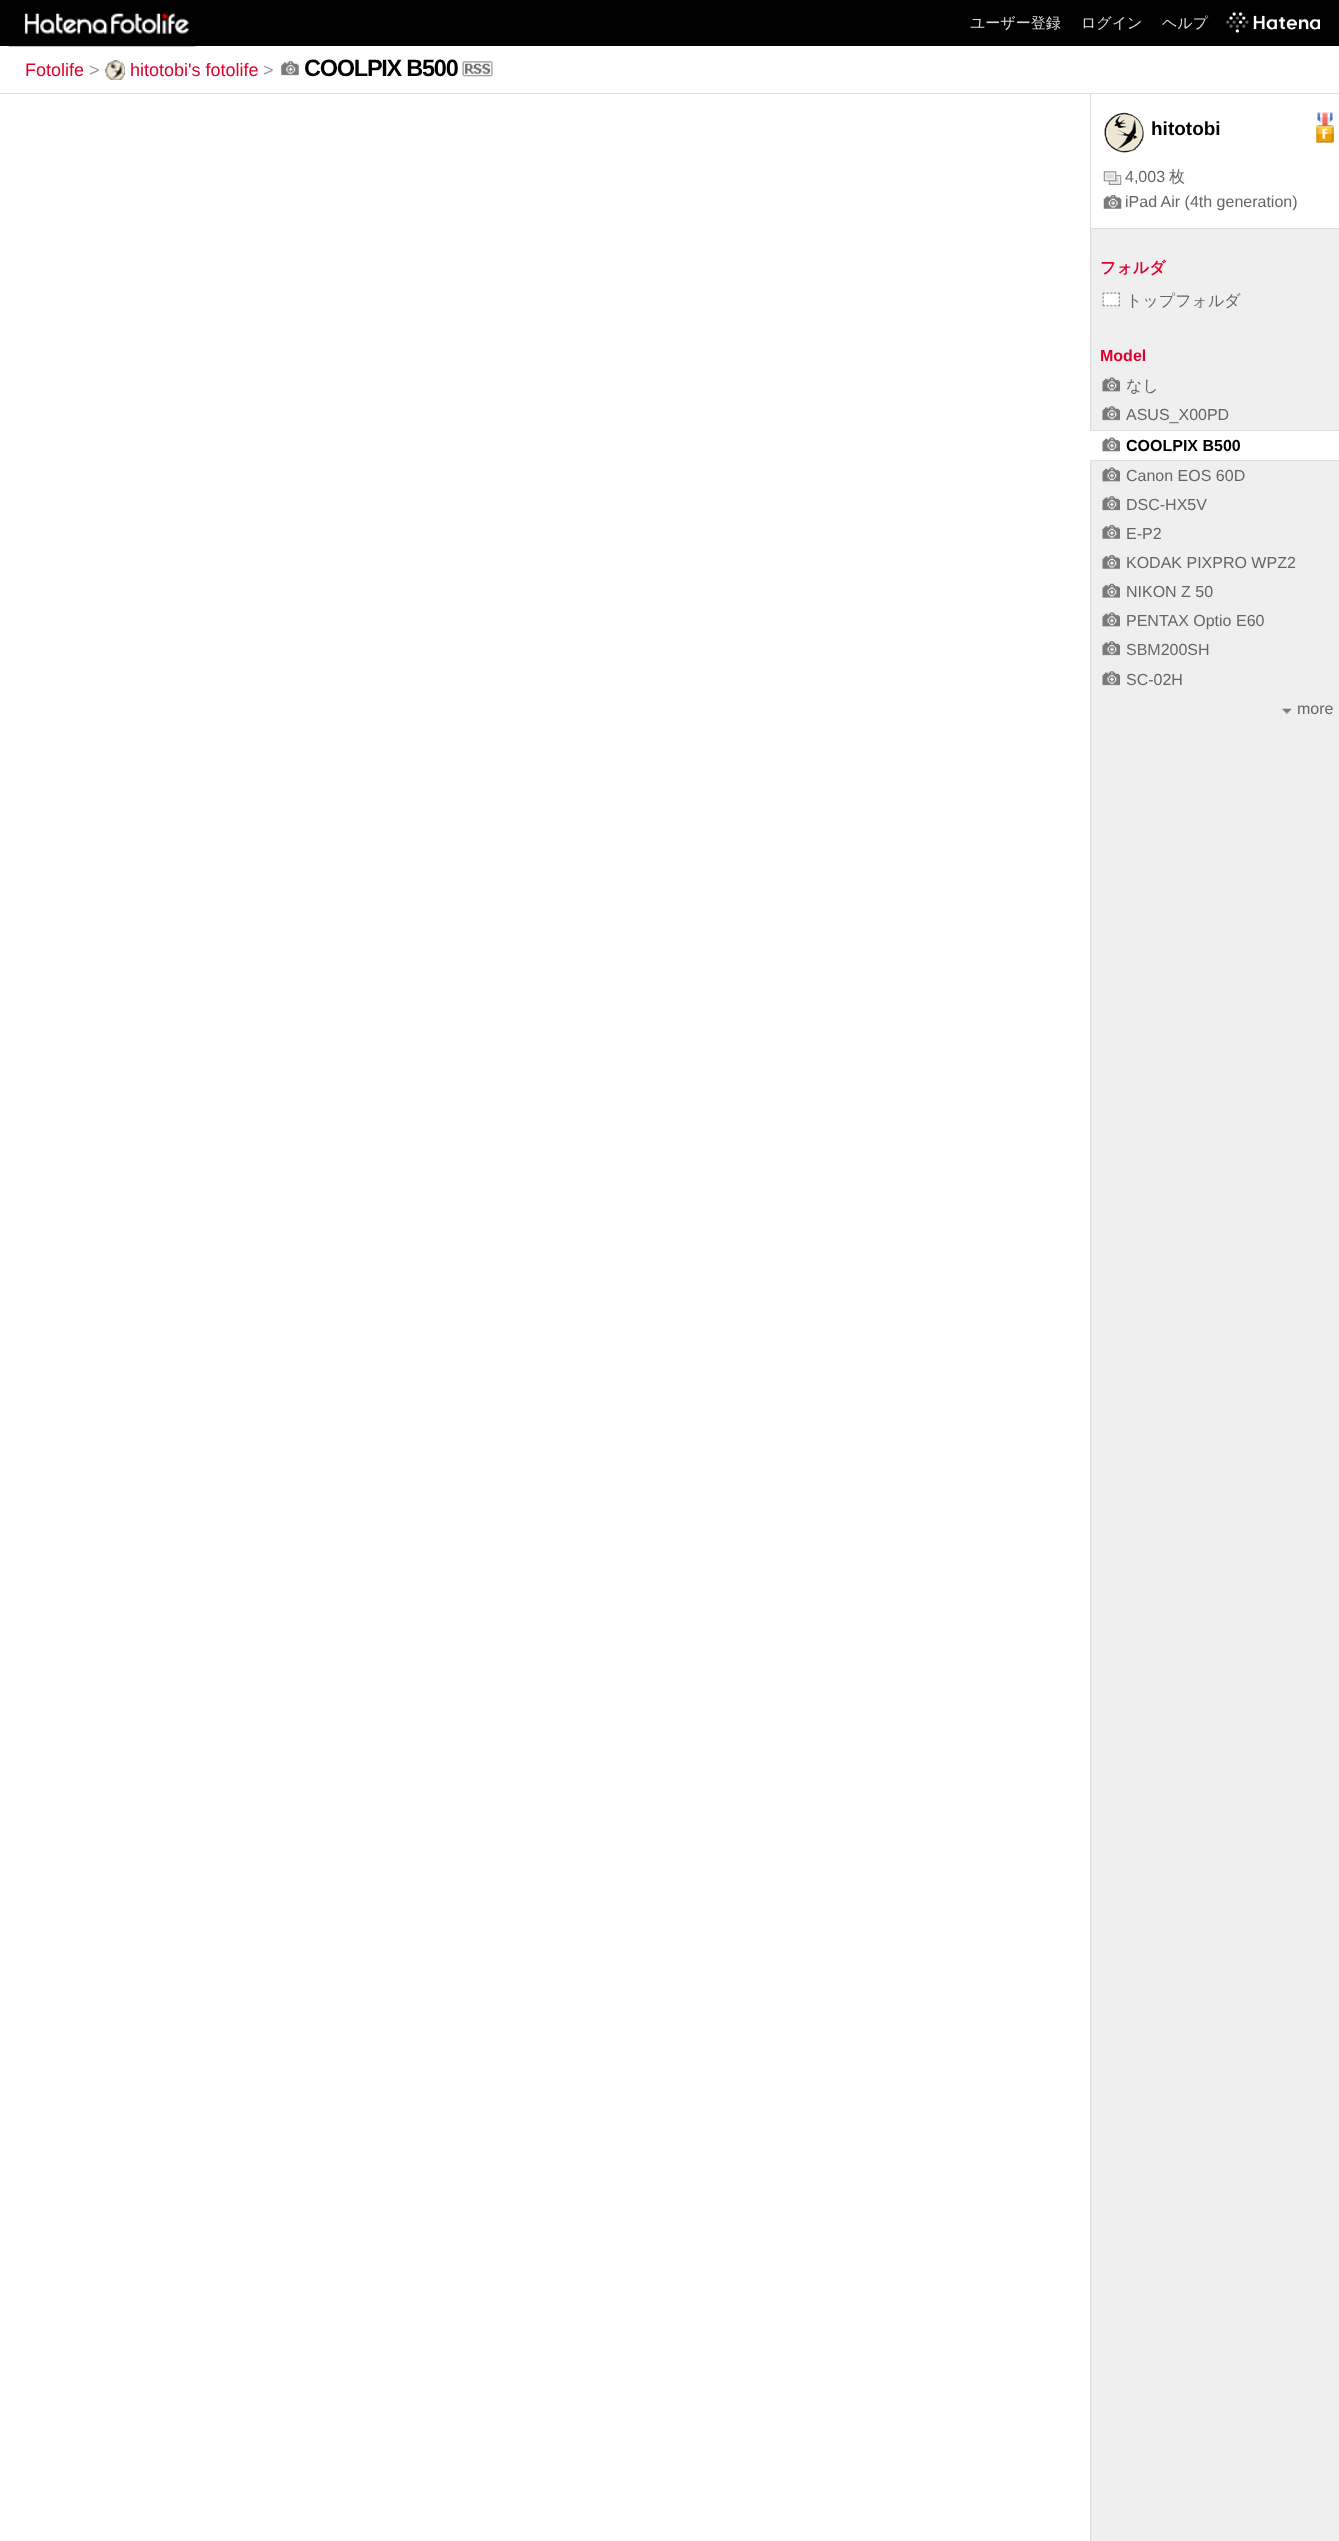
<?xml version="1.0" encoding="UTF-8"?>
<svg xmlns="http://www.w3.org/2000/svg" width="1339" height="2541">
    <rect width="100%" height="100%" fill="#FFFFFF"/>
    <image x="1090" y="94" width="249" height="2447" href="img_01.png"/>
    <rect x="0" y="0" width="1339" height="46" fill="#000000"/>
    <image x="8" y="13" width="104" height="34" href="img_02.png"/>
    <image x="111" y="13" width="84" height="34" href="img_03.png"/>
    <text x="970" y="28" font-family="WenQuanYi Zen Hei" font-size="15" font-weight="500" fill="#DDDDDD">ユーザー登録</text>
    <text x="1081" y="28" font-family="WenQuanYi Zen Hei" font-size="15" font-weight="500" fill="#DDDDDD">ログイン</text>
    <text x="1162" y="28" font-family="WenQuanYi Zen Hei" font-size="15" font-weight="500" fill="#DDDDDD">ヘルプ</text>
    <image x="1226" y="12" width="94" height="21" href="img_04.png"/>
    <rect x="0" y="93" width="1339" height="1" fill="#DEDEDE"/>
    <text x="25" y="76" font-family="Liberation Sans" font-size="18" fill="#DE002F">Fotolife</text>
    <text x="89" y="76" font-family="Liberation Sans" font-size="18" fill="#999999">&gt;</text>
    <image x="105" y="60" width="20" height="20" href="img_05.png"/>
    <text x="130" y="76" font-family="Liberation Sans" font-size="18" fill="#DE002F">hitotobi's fotolife</text>
    <text x="263" y="76" font-family="Liberation Sans" font-size="18" fill="#999999">&gt;</text>
    <image x="281" y="61" width="18" height="15" href="img_06.png"/>
    <text x="304" y="76" font-family="Liberation Sans" font-size="23.5" font-weight="700" letter-spacing="-1.25" fill="#000000">COOLPIX B500</text>
    <image x="462" y="61" width="31" height="16" href="img_07.png"/>
    <rect x="1091" y="94" width="248" height="134" fill="#FFFFFF"/>
    <rect x="1091" y="228" width="248" height="1" fill="#DEDEDE"/>
    <image x="1104" y="112" width="40" height="41" href="img_08.png"/>
    <text x="1151" y="135" font-family="Liberation Sans" font-size="19" font-weight="700" fill="#000000">hitotobi</text>
    <image x="1316" y="112" width="18" height="31" href="img_09.png"/>
    <image x="1103" y="171" width="19" height="14" href="img_10.png"/>
    <text x="1125" y="182" font-family="Liberation Sans" font-size="16" fill="#666666">4,003</text>
    <text x="1169" y="182" font-family="WenQuanYi Zen Hei" font-size="16" font-weight="500" fill="#666666">枚</text>
    <image x="1103" y="195" width="19" height="14" href="img_11.png"/>
    <text x="1125" y="207" font-family="Liberation Sans" font-size="16" fill="#666666">iPad Air (4th generation)</text>
    <text x="1100" y="273" font-family="WenQuanYi Zen Hei" font-size="16" font-weight="700" fill="#DE002F">フォルダ</text>
    <image x="1090" y="286" width="249" height="29" href="img_12.png"/>
    <image x="1102" y="292" width="18" height="15" href="img_13.png"/>
    <text x="1126" y="306" font-family="WenQuanYi Zen Hei" font-size="16" font-weight="500" fill="#666666">トップフォルダ</text>
    <text x="1100" y="361" font-family="Liberation Sans" font-size="16" font-weight="700" fill="#DE002F">Model</text>
    <image x="1102" y="377" width="18" height="15" href="img_14.png"/>
    <text x="1126" y="391" font-family="WenQuanYi Zen Hei" font-size="16" font-weight="500" fill="#666666">なし</text>
    <image x="1102" y="406" width="18" height="15" href="img_15.png"/>
    <text x="1126" y="420" font-family="Liberation Sans" font-size="16" fill="#666666">ASUS_X00PD</text>
    <rect x="1090" y="431" width="249" height="29" fill="#FFFFFF"/>
    <rect x="1090" y="430" width="249" height="1" fill="#DEDEDE"/>
    <rect x="1090" y="460" width="249" height="1" fill="#DEDEDE"/>
    <image x="1102" y="437" width="18" height="15" href="img_16.png"/>
    <text x="1126" y="451" font-family="Liberation Sans" font-size="16" font-weight="700" fill="#000000">COOLPIX B500</text>
    <image x="1102" y="467" width="18" height="15" href="img_14.png"/>
    <text x="1126" y="481" font-family="Liberation Sans" font-size="16" fill="#666666">Canon EOS 60D</text>
    <image x="1102" y="496" width="18" height="15" href="img_15.png"/>
    <text x="1126" y="510" font-family="Liberation Sans" font-size="16" fill="#666666">DSC-HX5V</text>
    <image x="1102" y="525" width="18" height="14" href="img_17.png"/>
    <text x="1126" y="539" font-family="Liberation Sans" font-size="16" fill="#666666">E-P2</text>
    <image x="1102" y="555" width="18" height="14" href="img_17.png"/>
    <text x="1126" y="568" font-family="Liberation Sans" font-size="16" fill="#666666">KODAK PIXPRO WPZ2</text>
    <image x="1102" y="583" width="18" height="15" href="img_18.png"/>
    <text x="1126" y="597" font-family="Liberation Sans" font-size="16" fill="#666666">NIKON Z 50</text>
    <image x="1102" y="612" width="18" height="15" href="img_14.png"/>
    <text x="1126" y="626" font-family="Liberation Sans" font-size="16" fill="#666666">PENTAX Optio E60</text>
    <image x="1102" y="641" width="18" height="15" href="img_15.png"/>
    <text x="1126" y="655" font-family="Liberation Sans" font-size="16" fill="#666666">SBM200SH</text>
    <image x="1102" y="671" width="18" height="15" href="img_15.png"/>
    <text x="1126" y="685" font-family="Liberation Sans" font-size="16" fill="#666666">SC-02H</text>
    <image x="1282" y="708" width="10" height="6" href="img_19.png"/>
    <text x="1297" y="714" font-family="Liberation Sans" font-size="16" fill="#666666">more</text>
</svg>
